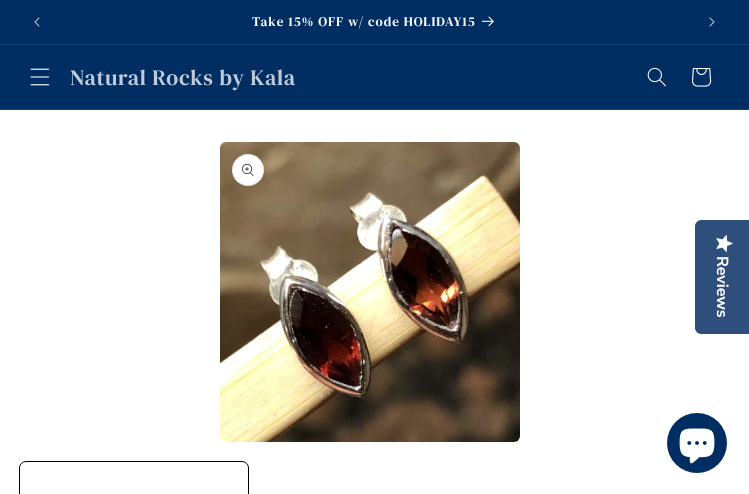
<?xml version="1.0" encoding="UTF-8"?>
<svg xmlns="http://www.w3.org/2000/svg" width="749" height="494">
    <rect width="100%" height="100%" fill="#FFFFFF"/>
    <rect x="0" y="0" width="749" height="44" fill="#002E63"/>
    <rect x="0" y="44" width="749" height="1" fill="#143F6F"/>
    <image x="34" y="17" width="6" height="10" href="img_01.png"/>
    <text x="252" y="26" font-family="DM Serif Text" font-size="13.25" letter-spacing="1" fill="#FFFFFF">Take 15% OFF w/ code HOLIDAY15</text>
    <image x="482" y="16" width="12" height="11" href="img_02.png"/>
    <image x="709" y="17" width="6" height="10" href="img_03.png"/>
    <rect x="0" y="45" width="749" height="64" fill="#002E63"/>
    <rect x="0" y="109" width="749" height="1" fill="#143F6F"/>
    <image x="30" y="68" width="20" height="18" href="img_04.png"/>
    <text x="70" y="85" font-family="DM Serif Text" font-size="22" letter-spacing="0.7" fill="#BFCBD8">Natural Rocks by Kala</text>
    <image x="647" y="67" width="19" height="20" href="img_05.png"/>
    <image x="692" y="68" width="20" height="19" href="img_06.png"/>
    <image x="220" y="142" width="300" height="300" href="img_07.png"/>
    <circle cx="248" cy="170" r="16" fill="#FFFFFF"/>
    <circle cx="248" cy="170" r="15.5" fill="none" stroke="#000000" stroke-opacity="0.1"/>
    <image x="242" y="164" width="12" height="12" href="img_08.png"/>
    <rect x="19.5" y="461.5" width="229" height="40" rx="6.5" fill="none" stroke="#000000"/>
    <path d="M 749 220 V 334 H 701 C 698 334 695 331 695 328 V 226 C 695 223 698 220 701 220 Z" fill="#2E4F7C"/>
    <image x="716" y="234" width="17" height="19" href="img_09.png"/>
    <text x="717" y="256" transform="rotate(90 717 256)" font-family="Nunito Sans" font-size="16" font-weight="200" fill="#FFFFFF">Reviews</text>
    <circle cx="697" cy="443" r="30" fill="#002E63"/>
    <image x="679" y="428" width="36" height="36" href="img_10.png"/>
</svg>
